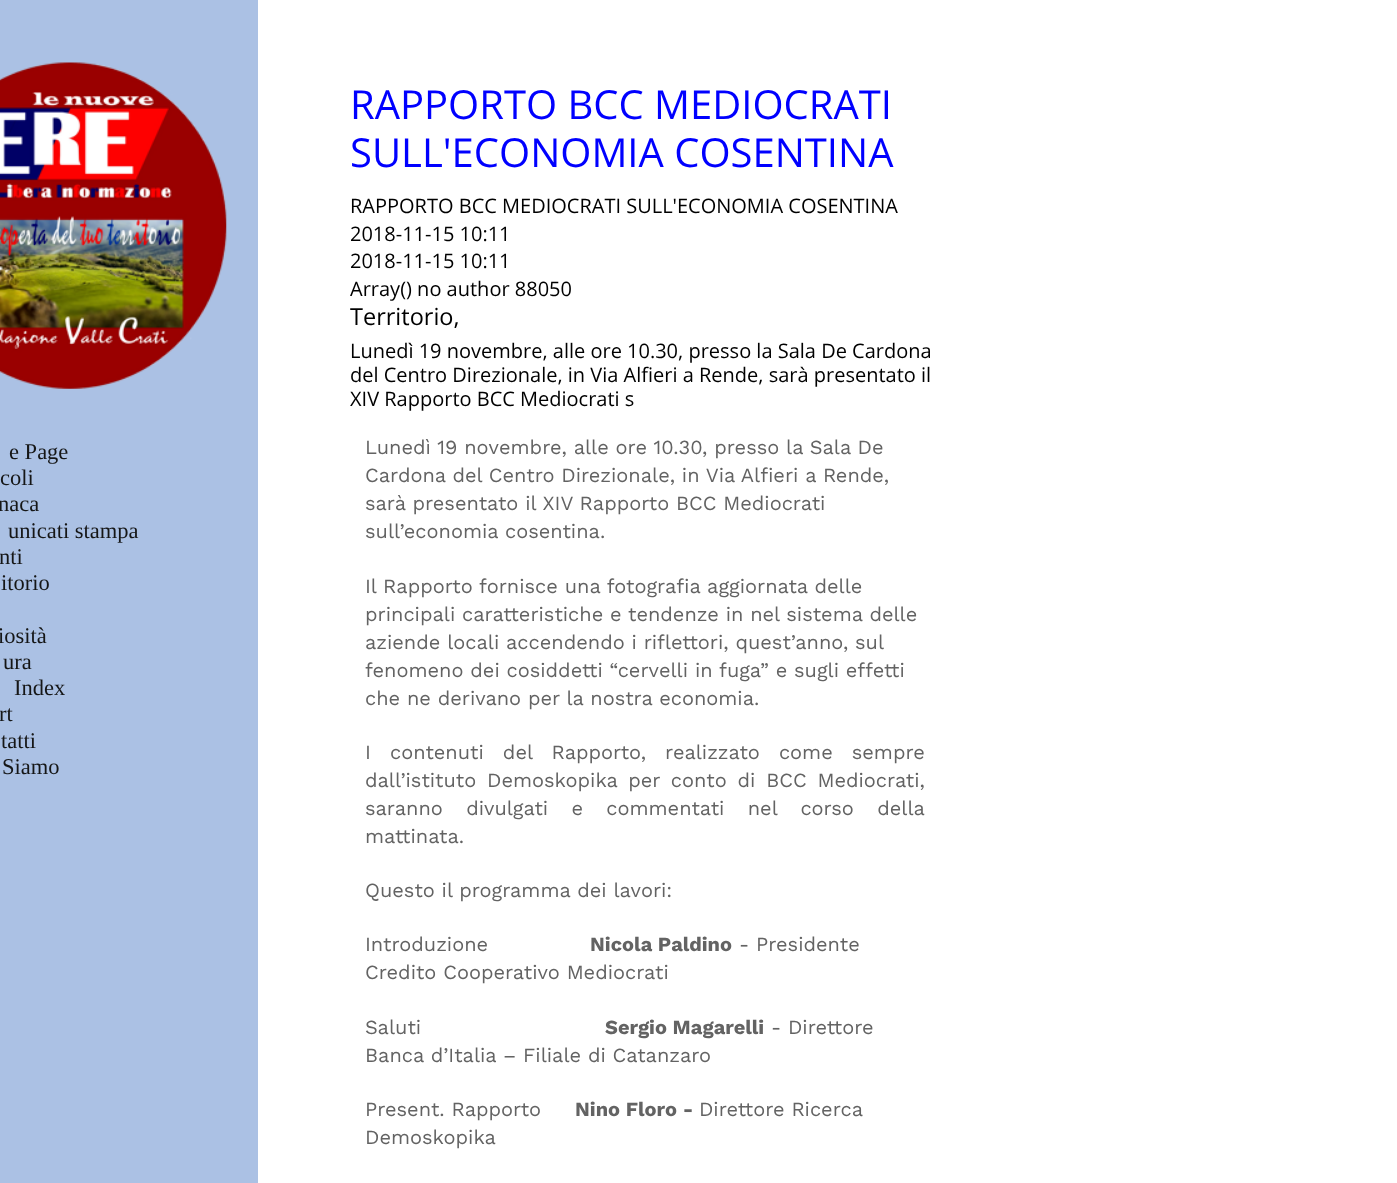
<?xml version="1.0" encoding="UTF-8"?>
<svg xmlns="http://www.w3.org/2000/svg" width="1397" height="1183">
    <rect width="100%" height="100%" fill="#FFFFFF"/>
    <rect x="0" y="0" width="258" height="1183" fill="#ABC1E4"/>
    <image x="0" y="62" width="227" height="327" href="img_01.png"/>
    <text font-family="Open Sans" font-size="40" fill="#0000FF">
        <tspan x="350" y="119">RAPPORTO BCC MEDIOCRATI</tspan>
        <tspan x="350" y="167">SULL'ECONOMIA COSENTINA</tspan>
    </text>
    <text font-family="Open Sans" font-size="20" fill="#000000">
        <tspan x="350" y="213">RAPPORTO BCC MEDIOCRATI SULL'ECONOMIA COSENTINA</tspan>
        <tspan x="350" y="241">2018-11-15 10:11</tspan>
        <tspan x="350" y="268">2018-11-15 10:11</tspan>
        <tspan x="350" y="296">Array() no author 88050</tspan>
    </text>
    <text x="350" y="325" font-family="Open Sans" font-size="23.5" fill="#000000">Territorio,</text>
    <text font-family="Open Sans" font-size="20" fill="#000000">
        <tspan x="350" y="358">Lunedì 19 novembre, alle ore 10.30, presso la Sala De Cardona</tspan>
        <tspan x="350" y="382">del Centro Direzionale, in Via Alfieri a Rende, sarà presentato il</tspan>
        <tspan x="350" y="406">XIV Rapporto BCC Mediocrati s</tspan>
    </text>
    <text font-family="Work Sans" font-size="20" fill="#636363">
        <tspan x="365" y="454">Lunedì 19 novembre, alle ore 10.30, presso la Sala De</tspan>
        <tspan x="365" y="482">Cardona del Centro Direzionale, in Via Alfieri a Rende,</tspan>
        <tspan x="365" y="510">sarà presentato il XIV Rapporto BCC Mediocrati</tspan>
        <tspan x="365" y="538">sull’economia cosentina.</tspan>
    </text>
    <text font-family="Work Sans" font-size="20" fill="#636363">
        <tspan x="365" y="593">Il Rapporto fornisce una fotografia aggiornata delle</tspan>
        <tspan x="365" y="621">principali caratteristiche e tendenze in nel sistema delle</tspan>
        <tspan x="365" y="649">aziende locali accendendo i riflettori, quest’anno, sul</tspan>
        <tspan x="365" y="677">fenomeno dei cosiddetti “cervelli in fuga” e sugli effetti</tspan>
        <tspan x="365" y="705">che ne derivano per la nostra economia.</tspan>
    </text>
    <text font-family="Work Sans" font-size="20" fill="#636363">
        <tspan x="365" y="759" word-spacing="12.25">I contenuti del Rapporto, realizzato come sempre</tspan>
        <tspan x="365" y="787" word-spacing="4">dall’istituto Demoskopika per conto di BCC Mediocrati,</tspan>
        <tspan x="365" y="815" word-spacing="16.5">saranno divulgati e commentati nel corso della</tspan>
        <tspan x="365" y="843">mattinata.</tspan>
    </text>
    <text x="365" y="897" font-family="Work Sans" font-size="20" fill="#636363">Questo il programma dei lavori:</text>
    <text x="365" y="951" font-family="Work Sans" font-size="20" fill="#636363">Introduzione</text>
    <text x="590" y="951" font-family="Work Sans" font-size="20" font-weight="700" fill="#636363">Nicola Paldino</text>
    <text x="739" y="951" font-family="Work Sans" font-size="20" fill="#636363">- Presidente</text>
    <text x="365" y="979" font-family="Work Sans" font-size="20" fill="#636363">Credito Cooperativo Mediocrati</text>
    <text x="365" y="1034" font-family="Work Sans" font-size="20" fill="#636363">Saluti</text>
    <text x="605" y="1034" font-family="Work Sans" font-size="20" font-weight="700" fill="#636363">Sergio Magarelli</text>
    <text x="771" y="1034" font-family="Work Sans" font-size="20" fill="#636363">- Direttore</text>
    <text x="365" y="1062" font-family="Work Sans" font-size="20" fill="#636363">Banca d’Italia – Filiale di Catanzaro</text>
    <text x="365" y="1116" font-family="Work Sans" font-size="20" fill="#636363">Present. Rapporto</text>
    <text x="575" y="1116" font-family="Work Sans" font-size="20" font-weight="700" fill="#636363">Nino Floro -</text>
    <text x="699" y="1116" font-family="Work Sans" font-size="20" fill="#636363">Direttore Ricerca</text>
    <text x="365" y="1144" font-family="Work Sans" font-size="20" fill="#636363">Demoskopika</text>
    <text x="9" y="459" font-family="Liberation Serif" font-size="22.5" fill="#151616">e Page</text>
    <text x="0" y="485" font-family="Liberation Serif" font-size="22.5" fill="#151616">coli</text>
    <text x="-2" y="511" font-family="Liberation Serif" font-size="22.5" fill="#151616">naca</text>
    <text x="8" y="538" font-family="Liberation Serif" font-size="22.5" fill="#151616">unicati stampa</text>
    <text x="-1" y="564" font-family="Liberation Serif" font-size="22.5" fill="#151616">nti</text>
    <text x="1" y="590" font-family="Liberation Serif" font-size="22.5" fill="#151616">itorio</text>
    <text x="-2" y="643" font-family="Liberation Serif" font-size="22.5" fill="#151616">iosità</text>
    <text x="3" y="669" font-family="Liberation Serif" font-size="22.5" fill="#151616">ura</text>
    <text x="14" y="695" font-family="Liberation Serif" font-size="22.5" fill="#151616">Index</text>
    <text x="-1" y="721" font-family="Liberation Serif" font-size="22.5" fill="#151616">rt</text>
    <text x="1" y="748" font-family="Liberation Serif" font-size="22.5" fill="#151616">tatti</text>
    <text x="2" y="774" font-family="Liberation Serif" font-size="22.5" fill="#151616">Siamo</text>
</svg>
